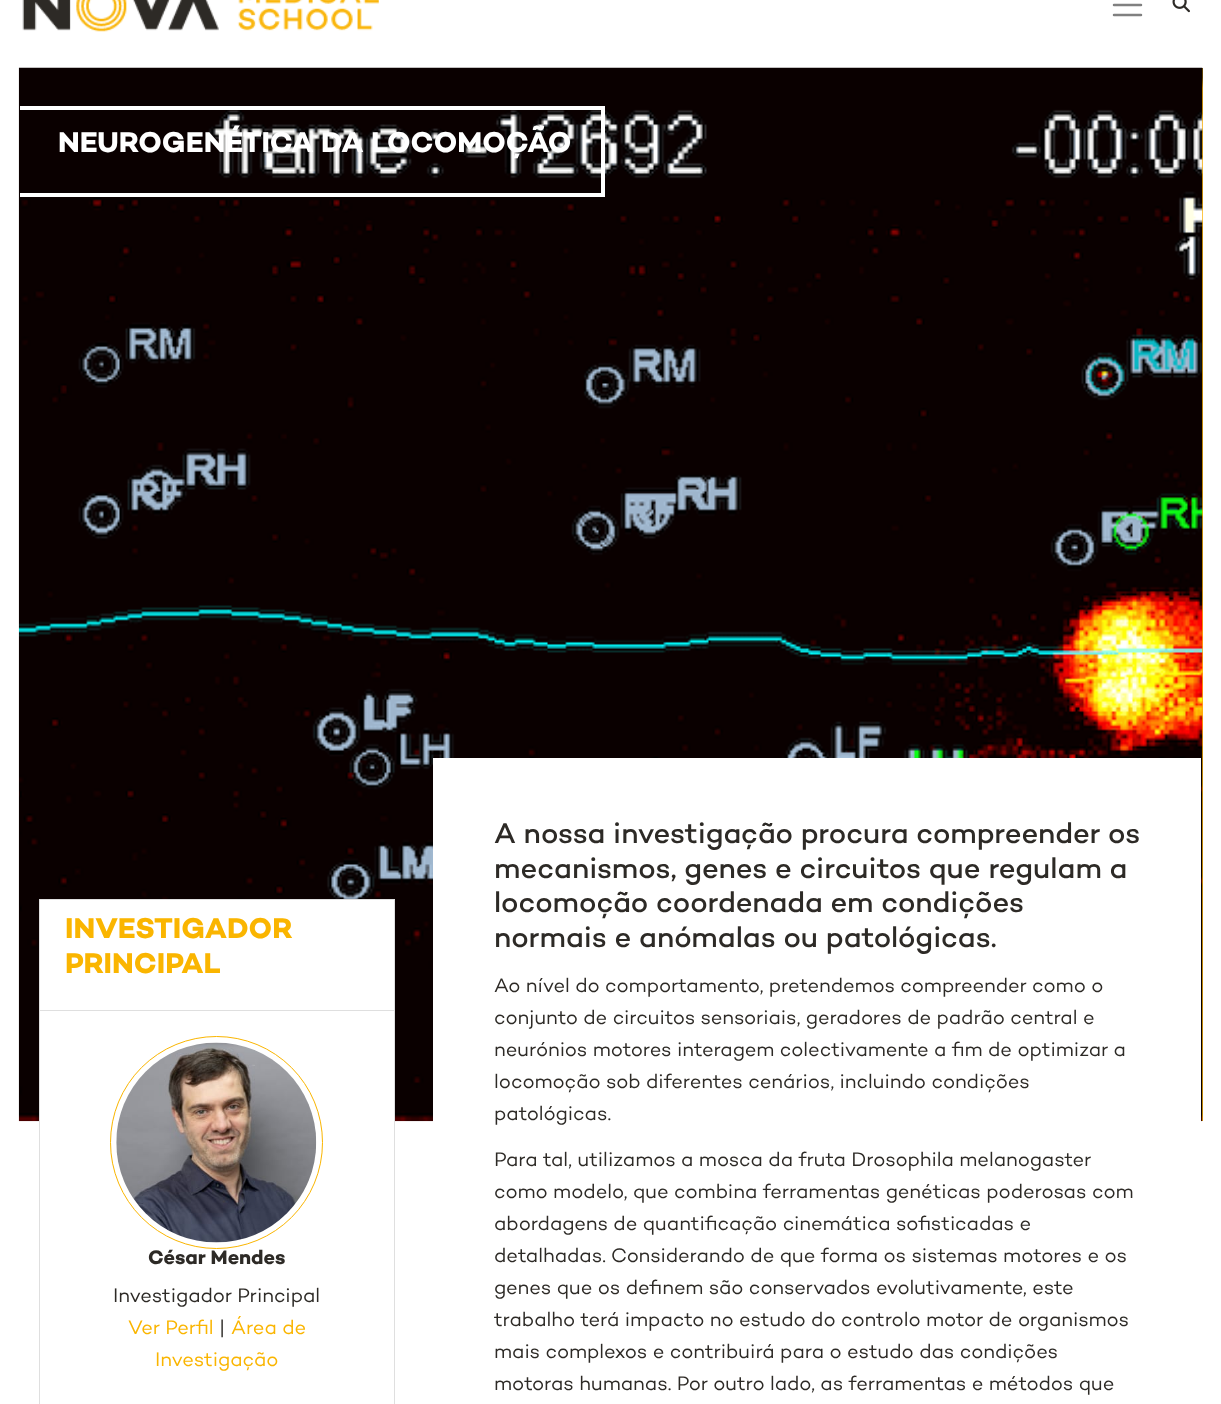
<?xml version="1.0" encoding="UTF-8"?>
<svg xmlns="http://www.w3.org/2000/svg" width="1221" height="1404">
    <defs>
        <linearGradient id="g1" gradientUnits="userSpaceOnUse" x1="611" y1="67" x2="611" y2="1121"><stop offset="0" stop-color="#7E5A07"/><stop offset="0.01" stop-color="#7E5A07"/><stop offset="0.02" stop-color="#FDB40D"/><stop offset="0.12" stop-color="#FDB40D"/></linearGradient>
    </defs>
    <rect width="100%" height="100%" fill="#FFFFFF"/>
    <image x="22" y="0" width="357" height="32" href="img_01.png"/>
    <path d="M 1114 -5 H 1141 M 1114 5 H 1141 M 1114 15 H 1141" fill="none" stroke="#808080" stroke-width="2.5" stroke-linecap="round"/>
    <image x="1172" y="0" width="18" height="13" href="img_02.png"/>
    <rect x="1202" y="68" width="1" height="1053" fill="url(#g1)"/>
    <image x="18" y="67" width="1185" height="1055" href="img_03.png"/>
    <rect x="20" y="106" width="585" height="4" fill="#FFFFFF"/>
    <rect x="601" y="106" width="4" height="90" fill="#FFFFFF"/>
    <rect x="20" y="193" width="585" height="4" fill="#FFFFFF"/>
    <text x="58" y="152" font-family="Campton" font-size="29.2" font-weight="700" fill="#FFFFFF">NEUROGENÉTICA DA LOCOMOÇÃO</text>
    <rect x="40" y="900" width="354" height="222" fill="#FFFFFF"/>
    <rect x="39.5" y="899.5" width="355" height="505" fill="none" stroke="#DFDFDF"/>
    <rect x="40" y="1010" width="354" height="1" fill="#DFDFDF"/>
    <text font-family="Campton" font-size="29.2" font-weight="700" fill="#FAB500">
        <tspan x="65" y="938">INVESTIGADOR</tspan>
        <tspan x="65" y="973">PRINCIPAL</tspan>
    </text>
    <circle cx="216.5" cy="1142.5" r="106" fill="none" stroke="#FAB500"/>
    <image x="116" y="1042" width="201" height="201" href="img_04.png"/>
    <text x="148" y="1264" font-family="Campton" font-size="20" font-weight="700" fill="#2D2A26">César Mendes</text>
    <text x="113" y="1302" font-family="Campton" font-size="20" fill="#2D2A26">Investigador Principal</text>
    <text x="128" y="1334" font-family="Campton" font-size="20" fill="#FAB500">Ver Perfil</text>
    <text x="219" y="1334" font-family="Campton" font-size="20" fill="#2D2A26">|</text>
    <text x="231" y="1334" font-family="Campton" font-size="20" fill="#FAB500">Área de</text>
    <text x="155" y="1366" font-family="Campton" font-size="20" fill="#FAB500">Investigação</text>
    <rect x="433" y="758" width="768" height="364" fill="#FFFFFF"/>
    <text font-family="Campton" font-size="29.2" font-weight="500" fill="#2D2A26">
        <tspan x="494" y="843">A nossa investigação procura compreender os</tspan>
        <tspan x="494" y="878">mecanismos, genes e circuitos que regulam a</tspan>
        <tspan x="494" y="912">locomoção coordenada em condições</tspan>
        <tspan x="494" y="947">normais e anómalas ou patológicas.</tspan>
    </text>
    <text font-family="Campton" font-size="20" fill="#2D2A26">
        <tspan x="494" y="992">Ao nível do comportamento, pretendemos compreender como o</tspan>
        <tspan x="494" y="1024">conjunto de circuitos sensoriais, geradores de padrão central e</tspan>
        <tspan x="494" y="1056">neurónios motores interagem colectivamente a fim de optimizar a</tspan>
        <tspan x="494" y="1088">locomoção sob diferentes cenários, incluindo condições</tspan>
        <tspan x="494" y="1120">patológicas.</tspan>
    </text>
    <text font-family="Campton" font-size="20" fill="#2D2A26">
        <tspan x="494" y="1166">Para tal, utilizamos a mosca da fruta Drosophila melanogaster</tspan>
        <tspan x="494" y="1198">como modelo, que combina ferramentas genéticas poderosas com</tspan>
        <tspan x="494" y="1230">abordagens de quantificação cinemática sofisticadas e</tspan>
        <tspan x="494" y="1262">detalhadas. Considerando de que forma os sistemas motores e os</tspan>
        <tspan x="494" y="1294">genes que os definem são conservados evolutivamente, este</tspan>
        <tspan x="494" y="1326">trabalho terá impacto no estudo do controlo motor de organismos</tspan>
        <tspan x="494" y="1358">mais complexos e contribuirá para o estudo das condições</tspan>
        <tspan x="494" y="1390">motoras humanas. Por outro lado, as ferramentas e métodos que</tspan>
    </text>
</svg>
